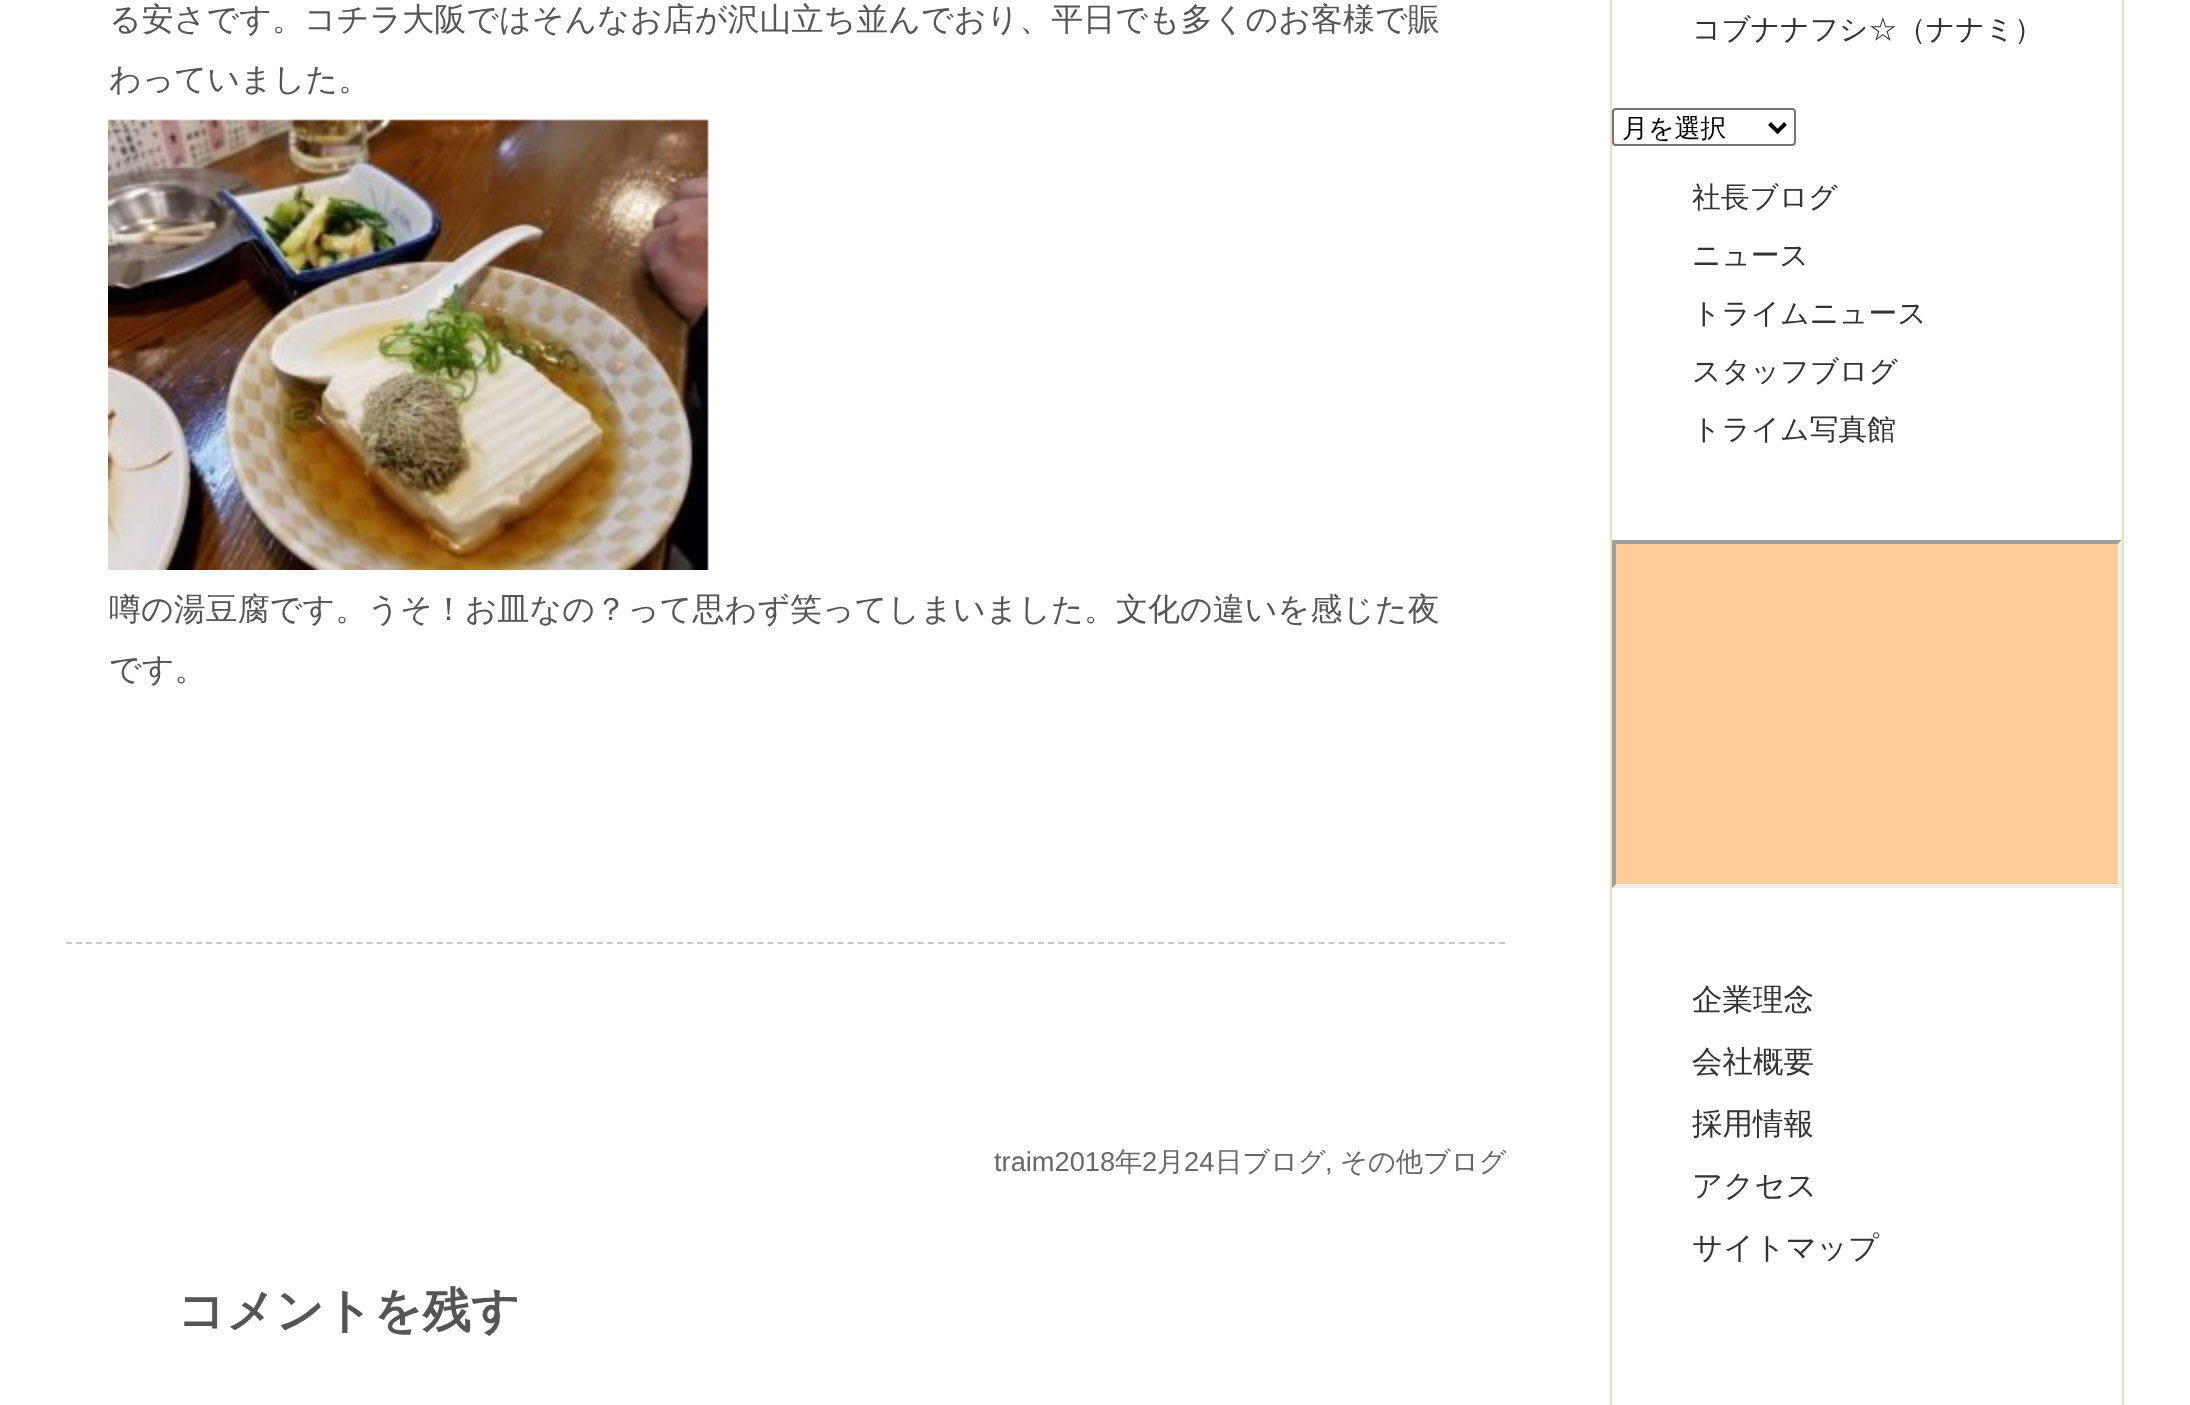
<?xml version="1.0" encoding="UTF-8"?>
<svg xmlns="http://www.w3.org/2000/svg" width="2190" height="1405">
    <rect width="100%" height="100%" fill="#FFFFFF"/>
    <path d="M 66 943 H 1506" fill="none" stroke="#C8C8C8" stroke-width="2" stroke-dasharray="6 4.02"/>
    <text font-family="WenQuanYi Zen Hei" font-size="32" font-weight="500" fill="#555555">
        <tspan x="109" y="30">る安さです。コチラ大阪ではそんなお店が沢山立ち並んでおり、平日でも多くのお客様で賑</tspan>
        <tspan x="109" y="90">わっていました。</tspan>
    </text>
    <image x="108" y="119" width="601" height="451" href="img_01.png"/>
    <text font-family="WenQuanYi Zen Hei" font-size="32" font-weight="500" fill="#555555">
        <tspan x="109" y="620">噂の湯豆腐です。うそ！お皿なの？って思わず笑ってしまいました。文化の違いを感じた夜</tspan>
        <tspan x="109" y="680">です。</tspan>
    </text>
    <text x="994" y="1171" font-family="Liberation Sans" font-size="27.25" fill="#686868">traim2018</text>
    <text x="1115" y="1171" font-family="WenQuanYi Zen Hei" font-size="27.25" font-weight="500" fill="#686868">年</text>
    <text x="1142" y="1171" font-family="Liberation Sans" font-size="27.25" fill="#686868">2</text>
    <text x="1157" y="1171" font-family="WenQuanYi Zen Hei" font-size="27.25" font-weight="500" fill="#686868">月</text>
    <text x="1184" y="1171" font-family="Liberation Sans" font-size="27.25" fill="#686868">24</text>
    <text x="1215" y="1171" font-family="WenQuanYi Zen Hei" font-size="27.25" font-weight="500" fill="#686868">日ブログ</text>
    <text x="1325" y="1171" font-family="Liberation Sans" font-size="27.25" fill="#686868">,</text>
    <text x="1340" y="1171" font-family="WenQuanYi Zen Hei" font-size="27.25" font-weight="500" fill="#686868">その他ブログ</text>
    <text x="177" y="1327" font-family="WenQuanYi Zen Hei" font-size="48" font-weight="700" fill="#555555">コメントを残す</text>
    <rect x="2122" y="0" width="2" height="1405" fill="#E9E3B7"/>
    <rect x="1610" y="0" width="2" height="1405" fill="#E9E3B7"/>
    <text x="1692" y="39" font-family="WenQuanYi Zen Hei" font-size="28.75" font-weight="500" fill="#333333">コブナナフシ☆（ナナミ）</text>
    <rect x="1613" y="109" width="182" height="36" rx="3" fill="none" stroke="#767676" stroke-width="2"/>
    <path d="M 1769.5 123.5 L 1777.5 131.5 L 1785.5 123.5" fill="none" stroke="#000000" stroke-width="4"/>
    <text x="1622" y="137" font-family="WenQuanYi Zen Hei" font-size="26" font-weight="500" fill="#000000">月を選択</text>
    <text x="1692" y="207" font-family="WenQuanYi Zen Hei" font-size="28.75" font-weight="500" fill="#333333">社長ブログ</text>
    <text x="1692" y="265" font-family="WenQuanYi Zen Hei" font-size="28.75" font-weight="500" fill="#333333">ニュース</text>
    <text x="1692" y="323" font-family="WenQuanYi Zen Hei" font-size="28.75" font-weight="500" fill="#333333">トライムニュース</text>
    <text x="1692" y="381" font-family="WenQuanYi Zen Hei" font-size="28.75" font-weight="500" fill="#333333">スタッフブログ</text>
    <text x="1692" y="439" font-family="WenQuanYi Zen Hei" font-size="28.75" font-weight="500" fill="#333333">トライム写真館</text>
    <rect x="1612" y="540" width="510" height="348" fill="#FFCC99"/>
    <path d="M 1612 540 H 2122 L 2118 544 H 1616 Z" fill="#9F9F9F"/>
    <path d="M 2122 540 V 888 L 2118 884 V 544 Z" fill="#EEEEEE"/>
    <path d="M 2122 888 H 1612 L 1616 884 H 2118 Z" fill="#EEEEEE"/>
    <path d="M 1612 888 V 540 L 1616 544 V 884 Z" fill="#9F9F9F"/>
    <text x="1692" y="1010" font-family="WenQuanYi Zen Hei" font-size="30.5" font-weight="500" fill="#333333">企業理念</text>
    <text x="1692" y="1072" font-family="WenQuanYi Zen Hei" font-size="30.5" font-weight="500" fill="#333333">会社概要</text>
    <text x="1692" y="1134" font-family="WenQuanYi Zen Hei" font-size="30.5" font-weight="500" fill="#333333">採用情報</text>
    <text x="1692" y="1196" font-family="WenQuanYi Zen Hei" font-size="30.5" font-weight="500" fill="#333333">アクセス</text>
    <text x="1692" y="1258" font-family="WenQuanYi Zen Hei" font-size="30.5" font-weight="500" fill="#333333">サイトマップ</text>
</svg>
